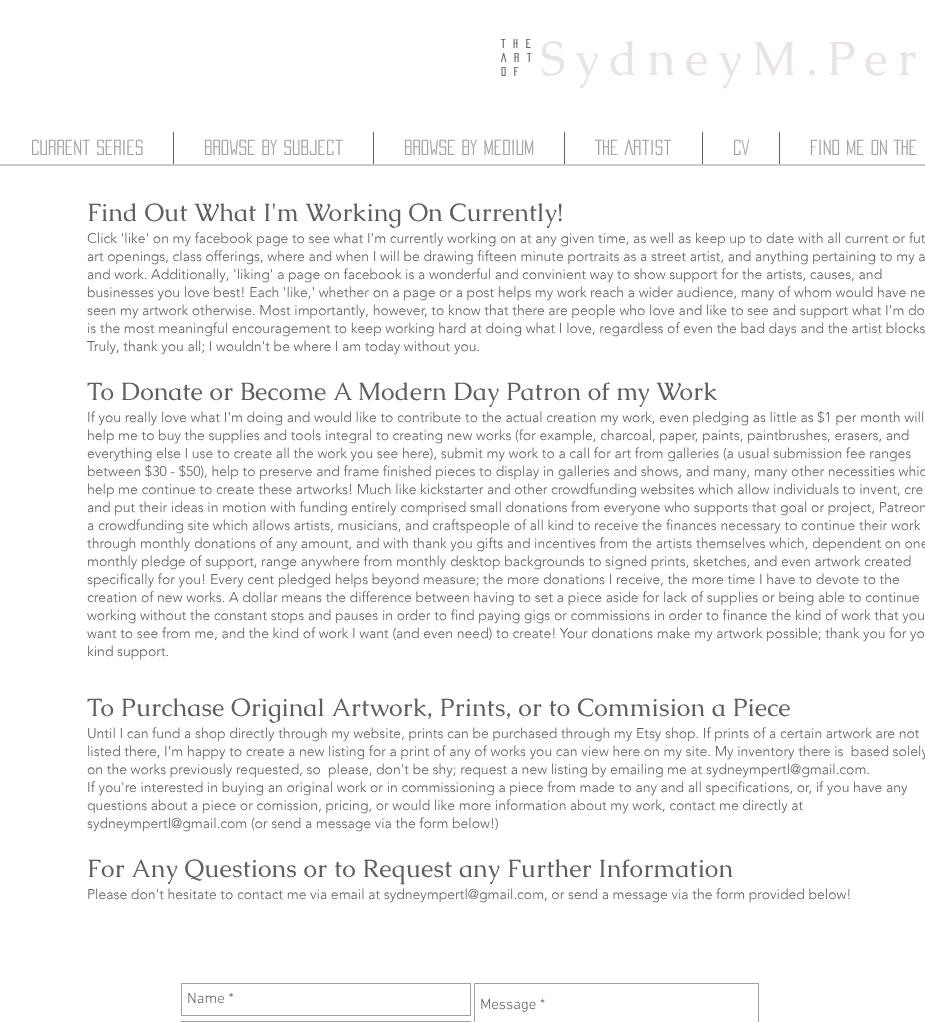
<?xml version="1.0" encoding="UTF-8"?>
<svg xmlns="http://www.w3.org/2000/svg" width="925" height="1022">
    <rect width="100%" height="100%" fill="#FFFFFF"/>
    <text font-family="'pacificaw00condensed'" font-size="11" font-weight="700" letter-spacing="8" fill="#605E5E">
        <tspan x="501" y="48">THE</tspan>
        <tspan x="501" y="62">ART</tspan>
        <tspan x="501" y="76">OF</tspan>
    </text>
    <text x="540" y="75" font-family="Caudex" font-size="48" letter-spacing="9.6" fill="#EAE3E3">SydneyM.Per</text>
    <text x="31" y="155" font-family="'pacificaw00condensed'" font-size="19" fill="#A0A09F">Current Series</text>
    <rect x="173" y="132" width="1" height="32" fill="#605E5E"/>
    <text x="204" y="155" font-family="'pacificaw00condensed'" font-size="19" fill="#A0A09F">Browse By Subject</text>
    <rect x="373" y="132" width="1" height="32" fill="#605E5E"/>
    <text x="404" y="155" font-family="'pacificaw00condensed'" font-size="19" fill="#A0A09F">Browse By Medium</text>
    <rect x="564" y="132" width="1" height="32" fill="#605E5E"/>
    <text x="595" y="155" font-family="'pacificaw00condensed'" font-size="19" fill="#A0A09F">The Artist</text>
    <rect x="702" y="132" width="1" height="32" fill="#605E5E"/>
    <text x="733" y="155" font-family="'pacificaw00condensed'" font-size="19" fill="#A0A09F">CV</text>
    <rect x="779" y="132" width="1" height="32" fill="#605E5E"/>
    <text x="810" y="155" font-family="'pacificaw00condensed'" font-size="19" fill="#A0A09F">Find Me on The</text>
    <rect x="0" y="164" width="925" height="2" fill="#CCCCCC"/>
    <text x="87" y="221" font-family="Caudex" font-size="25" fill="#605E5E">Find Out What I'm Working On Currently!</text>
    <text font-family="'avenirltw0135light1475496'" font-size="14" font-weight="300" fill="#605E5E">
        <tspan x="87" y="243">Click 'like' on my facebook page to see what I'm currently working on at any given time, as well as keep up to date with all current or fut</tspan>
        <tspan x="87" y="261">art openings, class offerings, where and when I will be drawing fifteen minute portraits as a street artist, and anything pertaining to my a</tspan>
        <tspan x="87" y="279">and work. Additionally, 'liking' a page on facebook is a wonderful and convinient way to show support for the artists, causes, and</tspan>
        <tspan x="87" y="297">businesses you love best! Each 'like,' whether on a page or a post helps my work reach a wider audience, many of whom would have ne</tspan>
        <tspan x="87" y="315">seen my artwork otherwise. Most importantly, however, to know that there are people who love and like to see and support what I'm do</tspan>
        <tspan x="87" y="333">is the most meaningful encouragement to keep working hard at doing what I love, regardless of even the bad days and the artist blocks</tspan>
        <tspan x="87" y="351">Truly, thank you all; I wouldn't be where I am today without you.</tspan>
    </text>
    <text x="87" y="400" font-family="Caudex" font-size="25" fill="#605E5E">To Donate or Become A Modern Day Patron of my Work</text>
    <text font-family="'avenirltw0135light1475496'" font-size="14" font-weight="300" fill="#605E5E">
        <tspan x="87" y="422">If you really love what I'm doing and would like to contribute to the actual creation my work, even pledging as little as $1 per month will</tspan>
        <tspan x="87" y="440">help me to buy the supplies and tools integral to creating new works (for example, charcoal, paper, paints, paintbrushes, erasers, and</tspan>
        <tspan x="87" y="458">everything else I use to create all the work you see here), submit my work to a call for art from galleries (a usual submission fee ranges</tspan>
        <tspan x="87" y="476">between $30 - $50), help to preserve and frame finished pieces to display in galleries and shows, and many, many other necessities whic</tspan>
        <tspan x="87" y="494">help me continue to create these artworks! Much like kickstarter and other crowdfunding websites which allow individuals to invent, cre</tspan>
        <tspan x="87" y="512">and put their ideas in motion with funding entirely comprised small donations from everyone who supports that goal or project, Patreon</tspan>
        <tspan x="87" y="530">a crowdfunding site which allows artists, musicians, and craftspeople of all kind to receive the finances necessary to continue their work</tspan>
        <tspan x="87" y="548">through monthly donations of any amount, and with thank you gifts and incentives from the artists themselves which, dependent on one</tspan>
        <tspan x="87" y="566">monthly pledge of support, range anywhere from monthly desktop backgrounds to signed prints, sketches, and even artwork created</tspan>
        <tspan x="87" y="584">specifically for you! Every cent pledged helps beyond measure; the more donations I receive, the more time I have to devote to the</tspan>
        <tspan x="87" y="602">creation of new works. A dollar means the difference between having to set a piece aside for lack of supplies or being able to continue</tspan>
        <tspan x="87" y="620">working without the constant stops and pauses in order to find paying gigs or commissions in order to finance the kind of work that you</tspan>
        <tspan x="87" y="638">want to see from me, and the kind of work I want (and even need) to create! Your donations make my artwork possible; thank you for yo</tspan>
        <tspan x="87" y="656">kind support.</tspan>
    </text>
    <text x="87" y="716" font-family="Caudex" font-size="25" fill="#605E5E">To Purchase Original Artwork, Prints, or to Commision a Piece</text>
    <text font-family="'avenirltw0135light1475496'" font-size="14" font-weight="300" fill="#605E5E" xml:space="preserve"><tspan x="87" y="738">Until I can fund a shop directly through my website, prints can be purchased through my Etsy shop. If prints of a certain artwork are not</tspan><tspan x="87" y="756">listed there, I'm happy to create a new listing for a print of any of works you can view here on my site. My inventory there is  based solely</tspan><tspan x="87" y="774">on the works previously requested, so  please, don't be shy; request a new listing by emailing me at sydneympertl@gmail.com.</tspan><tspan x="87" y="792">If you're interested in buying an original work or in commissioning a piece from made to any and all specifications, or, if you have any</tspan><tspan x="87" y="810">questions about a piece or comission, pricing, or would like more information about my work, contact me directly at</tspan><tspan x="87" y="828">sydneympertl@gmail.com (or send a message via the form below!)</tspan></text>
    <text x="87" y="877" font-family="Caudex" font-size="25" fill="#605E5E">For Any Questions or to Request any Further Information</text>
    <text x="87" y="899" font-family="'avenirltw0135light1475496'" font-size="14" font-weight="300" fill="#605E5E">Please don't hesitate to contact me via email at sydneympertl@gmail.com, or send a message via the form provided below!</text>
    <rect x="181.5" y="983.5" width="289" height="32" fill="none" stroke="#A0A09F"/>
    <text x="187" y="1003" font-family="'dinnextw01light'" font-size="15" font-weight="300" fill="#605E5E">Name *</text>
    <rect x="474.5" y="983.5" width="284" height="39" fill="none" stroke="#A0A09F"/>
    <text x="480" y="1009" font-family="'dinnextw01light'" font-size="15" font-weight="300" fill="#605E5E">Message *</text>
    <rect x="181.5" y="1021.5" width="289" height="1" fill="none" stroke="#A0A09F"/>
</svg>
